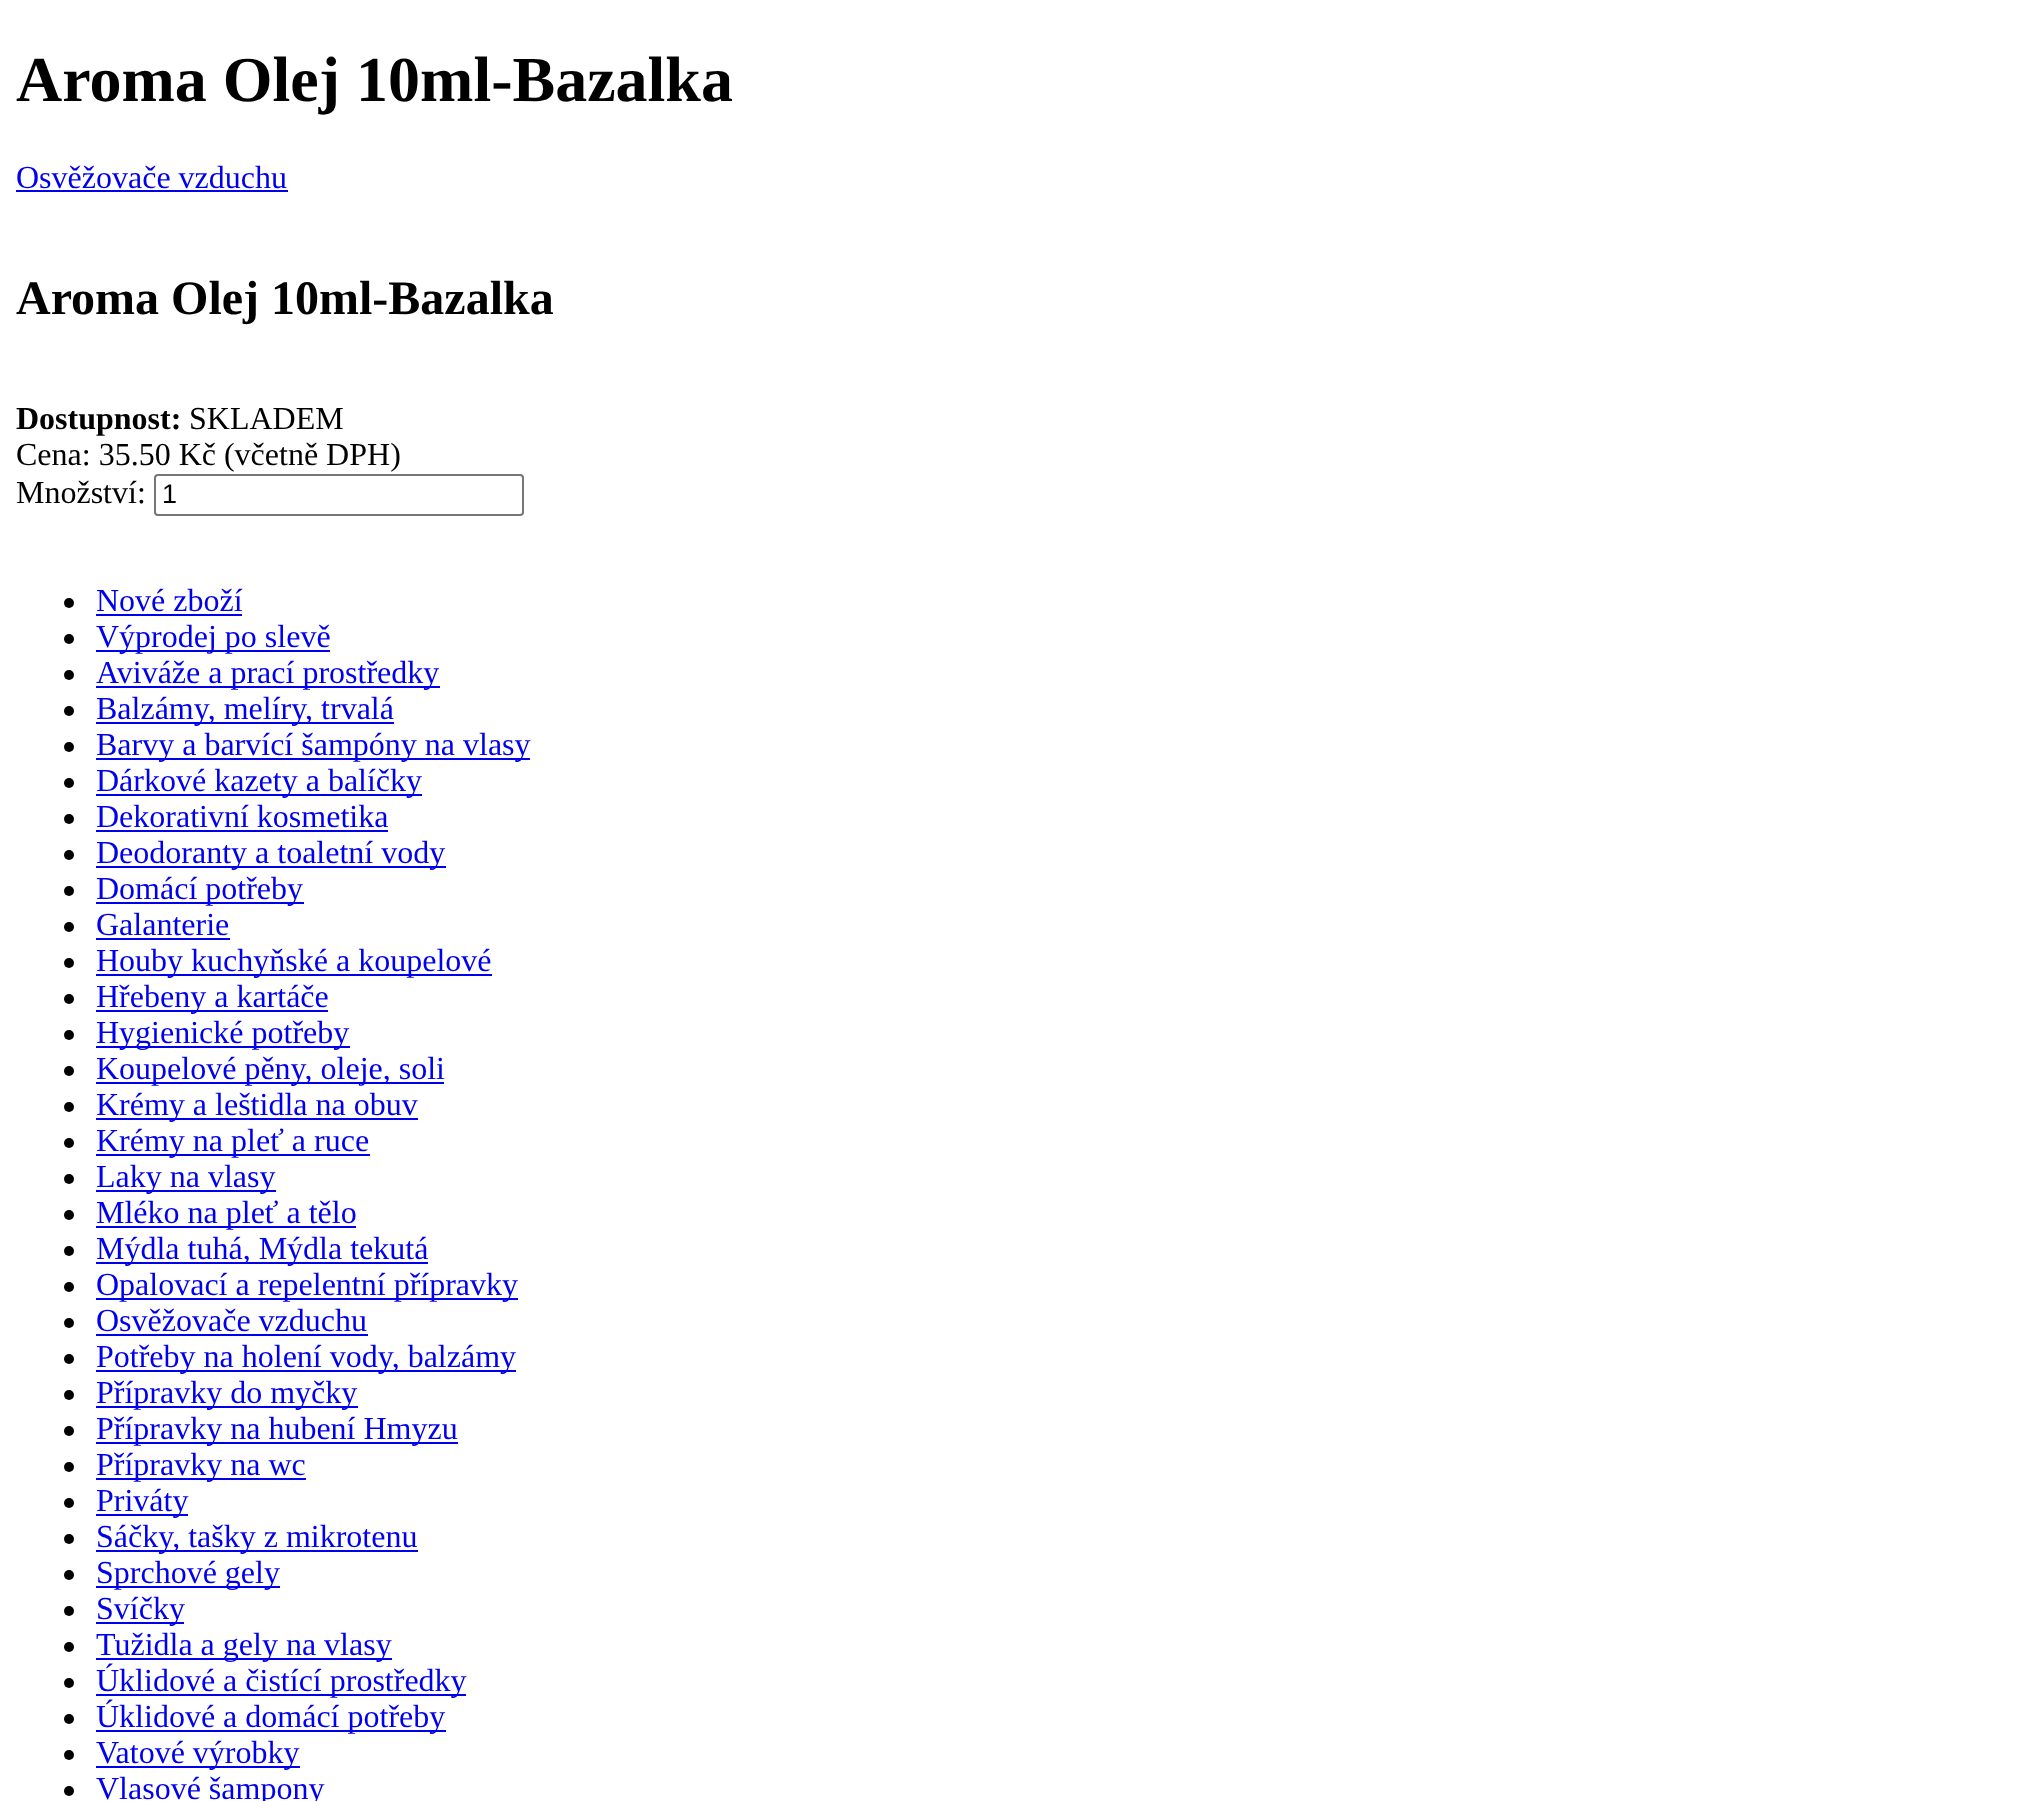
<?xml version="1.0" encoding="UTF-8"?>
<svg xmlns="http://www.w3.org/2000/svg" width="2043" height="1801">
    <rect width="100%" height="100%" fill="#FFFFFF"/>
    <text x="16" y="101" font-family="Liberation Serif" font-size="64" font-weight="700" fill="#000000">Aroma Olej 10ml-Bazalka</text>
    <text x="16" y="188" font-family="Liberation Serif" font-size="32" fill="#0000EE">Osvěžovače vzduchu</text>
    <rect x="16" y="190" width="272" height="2" fill="#0000EE"/>
    <text x="16" y="314" font-family="Liberation Serif" font-size="48" font-weight="700" fill="#000000">Aroma Olej 10ml-Bazalka</text>
    <text x="16" y="429" font-family="Liberation Serif" font-size="32" font-weight="700" fill="#000000">Dostupnost:</text>
    <text x="189" y="429" font-family="Liberation Serif" font-size="32" fill="#000000">SKLADEM</text>
    <text font-family="Liberation Serif" font-size="32" fill="#000000">
        <tspan x="16" y="465">Cena: 35.50 Kč (včetně DPH)</tspan>
        <tspan x="16" y="503">Množství:</tspan>
    </text>
    <rect x="155" y="475" width="368" height="40" rx="3" fill="none" stroke="#767676" stroke-width="2"/>
    <text x="162" y="503" font-family="Liberation Sans" font-size="27" fill="#000000">1</text>
    <circle cx="69" cy="603" r="5" fill="#000000"/>
    <text x="96" y="611" font-family="Liberation Serif" font-size="32" fill="#0000EE">Nové zboží</text>
    <rect x="96" y="614" width="146" height="2" fill="#0000EE"/>
    <circle cx="69" cy="639" r="5" fill="#000000"/>
    <rect x="96" y="650" width="234" height="2" fill="#0000EE"/>
    <text x="96" y="647" font-family="Liberation Serif" font-size="32" fill="#0000EE">Výprodej po slevě</text>
    <circle cx="69" cy="675" r="5" fill="#000000"/>
    <rect x="96" y="686" width="344" height="2" fill="#0000EE"/>
    <text x="96" y="683" font-family="Liberation Serif" font-size="32" fill="#0000EE">Aviváže a prací prostředky</text>
    <circle cx="69" cy="711" r="5" fill="#000000"/>
    <rect x="96" y="722" width="298" height="2" fill="#0000EE"/>
    <text x="96" y="719" font-family="Liberation Serif" font-size="32" fill="#0000EE">Balzámy, melíry, trvalá</text>
    <circle cx="69" cy="747" r="5" fill="#000000"/>
    <rect x="96" y="758" width="434" height="2" fill="#0000EE"/>
    <text x="96" y="755" font-family="Liberation Serif" font-size="32" fill="#0000EE">Barvy a barvící šampóny na vlasy</text>
    <circle cx="69" cy="783" r="5" fill="#000000"/>
    <rect x="96" y="794" width="326" height="2" fill="#0000EE"/>
    <text x="96" y="791" font-family="Liberation Serif" font-size="32" fill="#0000EE">Dárkové kazety a balíčky</text>
    <circle cx="69" cy="819" r="5" fill="#000000"/>
    <text x="96" y="827" font-family="Liberation Serif" font-size="32" fill="#0000EE">Dekorativní kosmetika</text>
    <rect x="96" y="830" width="292" height="2" fill="#0000EE"/>
    <circle cx="69" cy="855" r="5" fill="#000000"/>
    <rect x="96" y="866" width="350" height="2" fill="#0000EE"/>
    <text x="96" y="863" font-family="Liberation Serif" font-size="32" fill="#0000EE">Deodoranty a toaletní vody</text>
    <circle cx="69" cy="891" r="5" fill="#000000"/>
    <rect x="96" y="902" width="208" height="2" fill="#0000EE"/>
    <text x="96" y="899" font-family="Liberation Serif" font-size="32" fill="#0000EE">Domácí potřeby</text>
    <circle cx="69" cy="927" r="5" fill="#000000"/>
    <text x="96" y="935" font-family="Liberation Serif" font-size="32" fill="#0000EE">Galanterie</text>
    <rect x="96" y="938" width="134" height="2" fill="#0000EE"/>
    <circle cx="69" cy="963" r="5" fill="#000000"/>
    <rect x="96" y="974" width="396" height="2" fill="#0000EE"/>
    <text x="96" y="971" font-family="Liberation Serif" font-size="32" fill="#0000EE">Houby kuchyňské a koupelové</text>
    <circle cx="69" cy="999" r="5" fill="#000000"/>
    <rect x="96" y="1010" width="232" height="2" fill="#0000EE"/>
    <text x="96" y="1007" font-family="Liberation Serif" font-size="32" fill="#0000EE">Hřebeny a kartáče</text>
    <circle cx="69" cy="1035" r="5" fill="#000000"/>
    <rect x="96" y="1046" width="254" height="2" fill="#0000EE"/>
    <text x="96" y="1043" font-family="Liberation Serif" font-size="32" fill="#0000EE">Hygienické potřeby</text>
    <circle cx="69" cy="1071" r="5" fill="#000000"/>
    <rect x="96" y="1082" width="348" height="2" fill="#0000EE"/>
    <text x="96" y="1079" font-family="Liberation Serif" font-size="32" fill="#0000EE">Koupelové pěny, oleje, soli</text>
    <circle cx="69" cy="1107" r="5" fill="#000000"/>
    <rect x="96" y="1118" width="322" height="2" fill="#0000EE"/>
    <text x="96" y="1115" font-family="Liberation Serif" font-size="32" fill="#0000EE">Krémy a leštidla na obuv</text>
    <circle cx="69" cy="1143" r="5" fill="#000000"/>
    <rect x="96" y="1154" width="274" height="2" fill="#0000EE"/>
    <text x="96" y="1151" font-family="Liberation Serif" font-size="32" fill="#0000EE">Krémy na pleť a ruce</text>
    <circle cx="69" cy="1179" r="5" fill="#000000"/>
    <rect x="96" y="1190" width="180" height="2" fill="#0000EE"/>
    <text x="96" y="1187" font-family="Liberation Serif" font-size="32" fill="#0000EE">Laky na vlasy</text>
    <circle cx="69" cy="1215" r="5" fill="#000000"/>
    <rect x="96" y="1226" width="260" height="2" fill="#0000EE"/>
    <text x="96" y="1223" font-family="Liberation Serif" font-size="32" fill="#0000EE">Mléko na pleť a tělo</text>
    <circle cx="69" cy="1251" r="5" fill="#000000"/>
    <rect x="96" y="1262" width="332" height="2" fill="#0000EE"/>
    <text x="96" y="1259" font-family="Liberation Serif" font-size="32" fill="#0000EE">Mýdla tuhá, Mýdla tekutá</text>
    <circle cx="69" cy="1287" r="5" fill="#000000"/>
    <rect x="96" y="1298" width="422" height="2" fill="#0000EE"/>
    <text x="96" y="1295" font-family="Liberation Serif" font-size="32" fill="#0000EE">Opalovací a repelentní přípravky</text>
    <circle cx="69" cy="1323" r="5" fill="#000000"/>
    <text x="96" y="1331" font-family="Liberation Serif" font-size="32" fill="#0000EE">Osvěžovače vzduchu</text>
    <rect x="96" y="1334" width="272" height="2" fill="#0000EE"/>
    <circle cx="69" cy="1359" r="5" fill="#000000"/>
    <rect x="96" y="1370" width="420" height="2" fill="#0000EE"/>
    <text x="96" y="1367" font-family="Liberation Serif" font-size="32" fill="#0000EE">Potřeby na holení vody, balzámy</text>
    <circle cx="69" cy="1395" r="5" fill="#000000"/>
    <rect x="96" y="1406" width="262" height="2" fill="#0000EE"/>
    <text x="96" y="1403" font-family="Liberation Serif" font-size="32" fill="#0000EE">Přípravky do myčky</text>
    <circle cx="69" cy="1431" r="5" fill="#000000"/>
    <rect x="96" y="1442" width="362" height="2" fill="#0000EE"/>
    <text x="96" y="1439" font-family="Liberation Serif" font-size="32" fill="#0000EE">Přípravky na hubení Hmyzu</text>
    <circle cx="69" cy="1467" r="5" fill="#000000"/>
    <rect x="96" y="1478" width="210" height="2" fill="#0000EE"/>
    <text x="96" y="1475" font-family="Liberation Serif" font-size="32" fill="#0000EE">Přípravky na wc</text>
    <circle cx="69" cy="1503" r="5" fill="#000000"/>
    <rect x="96" y="1514" width="92" height="2" fill="#0000EE"/>
    <text x="96" y="1511" font-family="Liberation Serif" font-size="32" fill="#0000EE">Priváty</text>
    <circle cx="69" cy="1539" r="5" fill="#000000"/>
    <rect x="96" y="1550" width="322" height="2" fill="#0000EE"/>
    <text x="96" y="1547" font-family="Liberation Serif" font-size="32" fill="#0000EE">Sáčky, tašky z mikrotenu</text>
    <circle cx="69" cy="1575" r="5" fill="#000000"/>
    <rect x="96" y="1586" width="184" height="2" fill="#0000EE"/>
    <text x="96" y="1583" font-family="Liberation Serif" font-size="32" fill="#0000EE">Sprchové gely</text>
    <circle cx="69" cy="1611" r="5" fill="#000000"/>
    <rect x="96" y="1622" width="88" height="2" fill="#0000EE"/>
    <text x="96" y="1619" font-family="Liberation Serif" font-size="32" fill="#0000EE">Svíčky</text>
    <circle cx="69" cy="1647" r="5" fill="#000000"/>
    <rect x="96" y="1658" width="296" height="2" fill="#0000EE"/>
    <text x="96" y="1655" font-family="Liberation Serif" font-size="32" fill="#0000EE">Tužidla a gely na vlasy</text>
    <circle cx="69" cy="1683" r="5" fill="#000000"/>
    <rect x="96" y="1694" width="370" height="2" fill="#0000EE"/>
    <text x="96" y="1691" font-family="Liberation Serif" font-size="32" fill="#0000EE">Úklidové a čistící prostředky</text>
    <circle cx="69" cy="1719" r="5" fill="#000000"/>
    <rect x="96" y="1730" width="350" height="2" fill="#0000EE"/>
    <text x="96" y="1727" font-family="Liberation Serif" font-size="32" fill="#0000EE">Úklidové a domácí potřeby</text>
    <circle cx="69" cy="1755" r="5" fill="#000000"/>
    <rect x="96" y="1766" width="204" height="2" fill="#0000EE"/>
    <text x="96" y="1763" font-family="Liberation Serif" font-size="32" fill="#0000EE">Vatové výrobky</text>
    <circle cx="69" cy="1791" r="5" fill="#000000"/>
    <text x="96" y="1799" font-family="Liberation Serif" font-size="32" fill="#0000EE">Vlasové šampony</text>
</svg>
